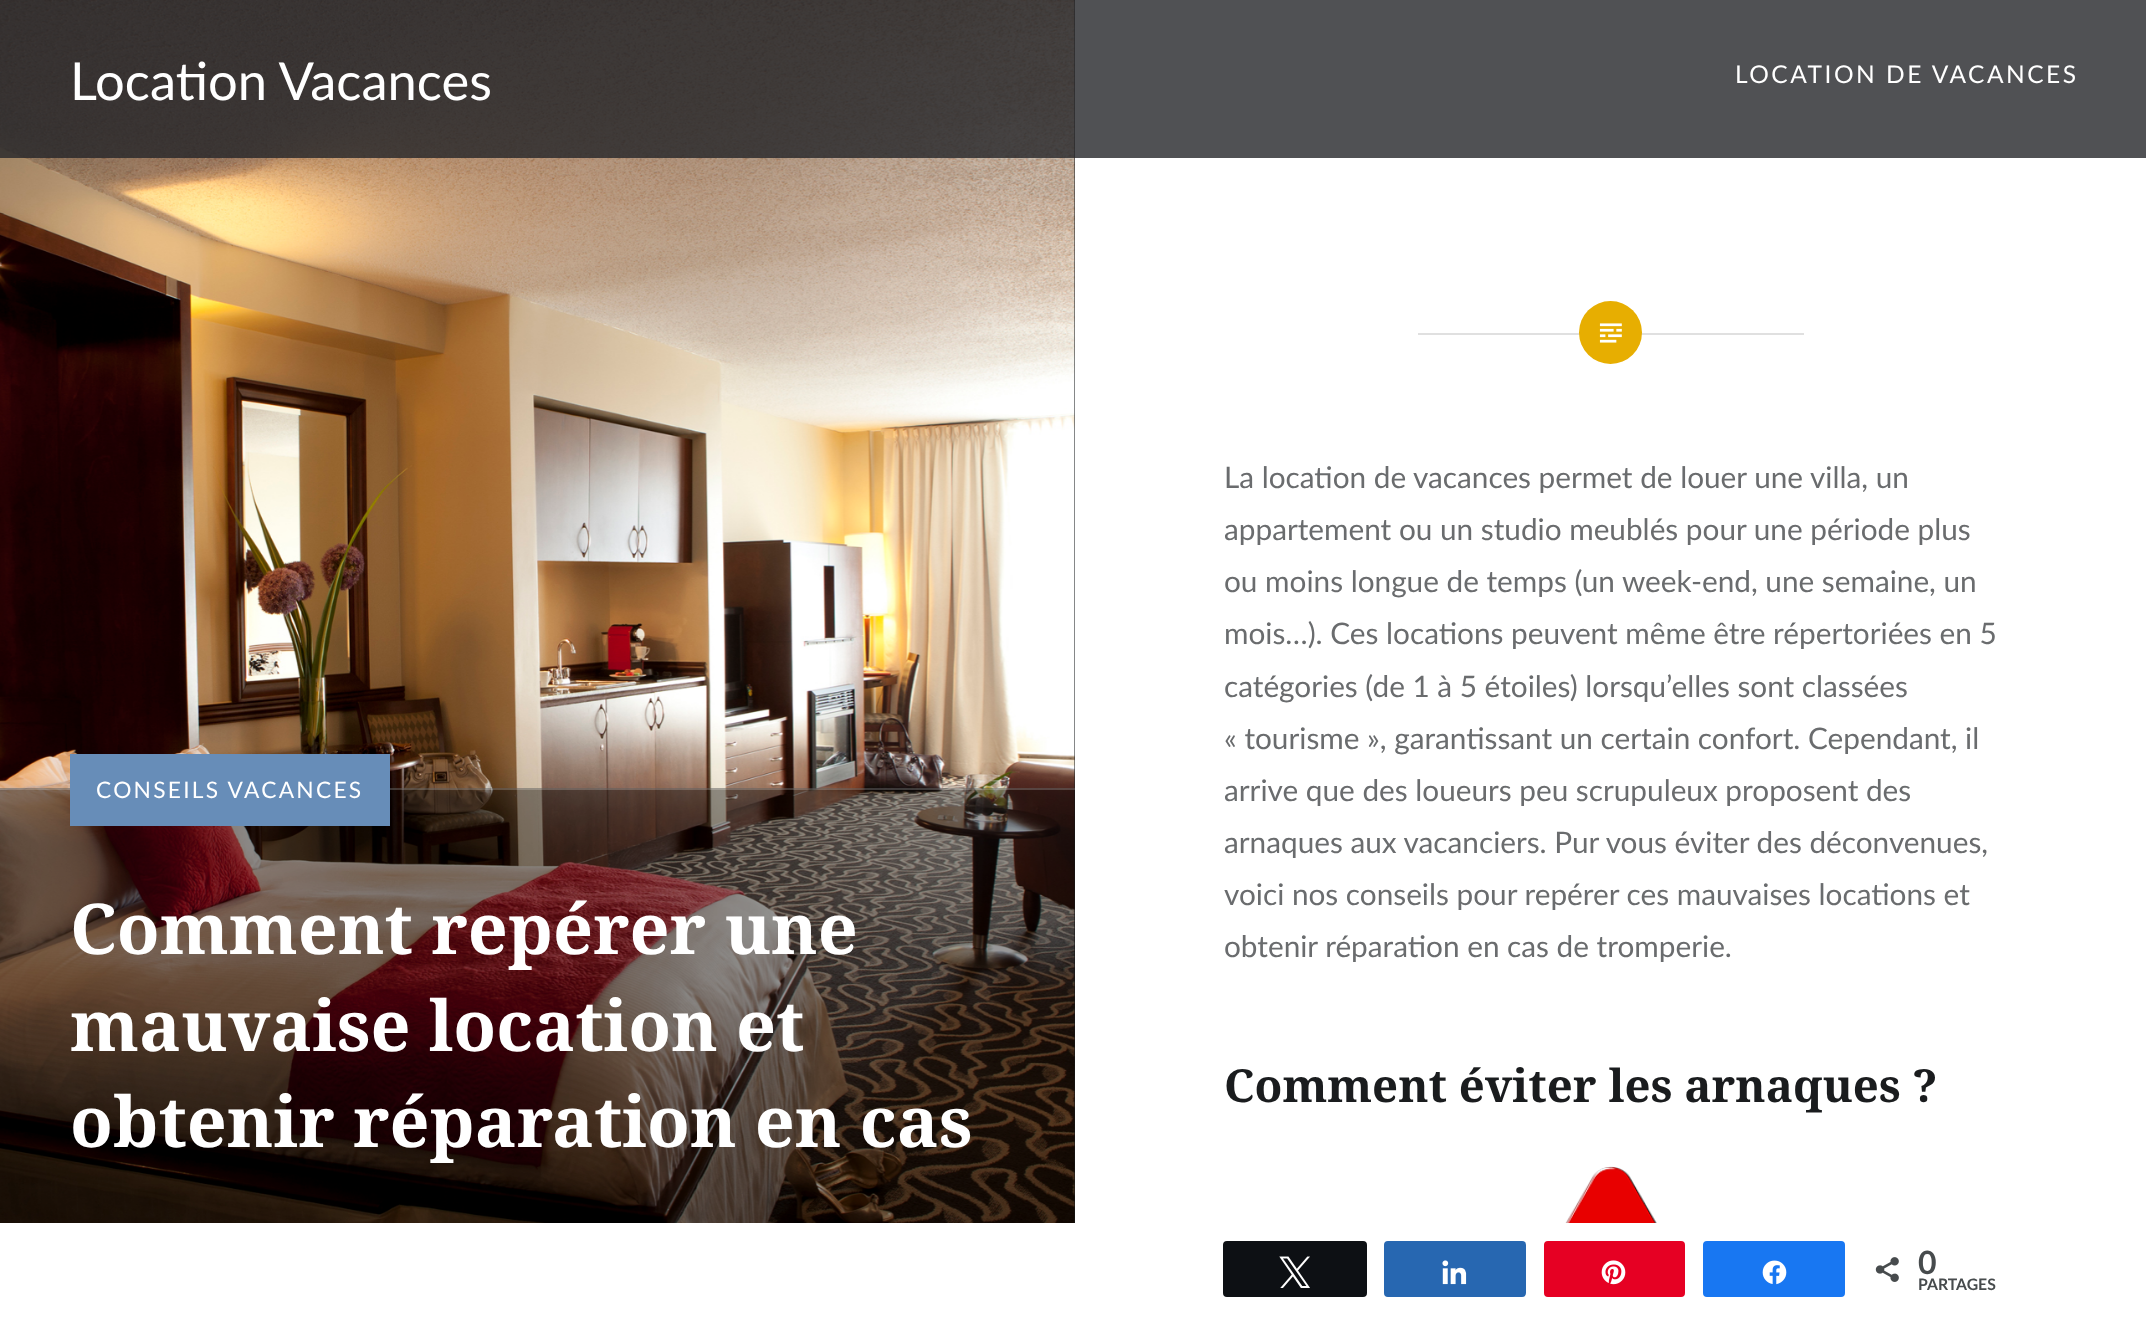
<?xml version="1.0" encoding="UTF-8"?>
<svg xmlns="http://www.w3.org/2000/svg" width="2146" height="1317">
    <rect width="100%" height="100%" fill="#242629"/>
    <rect x="1075" y="0" width="1071" height="1223" fill="#FFFFFF"/>
    <image x="0" y="0" width="1075" height="1223" href="img_01.png"/>
    <rect x="0" y="0" width="2146" height="158" fill="#242629" fill-opacity="0.8"/>
    <text x="70" y="100" font-family="Lato" font-size="52.5" fill="#FFFFFF">Location Vacances</text>
    <text x="1735" y="83" font-family="Lato" font-size="24.5" letter-spacing="2.5" fill="#FFFFFF">LOCATION DE VACANCES</text>
    <rect x="1418" y="333" width="386" height="2" fill="#E0E0E0"/>
    <circle cx="1610.5" cy="332.5" r="31.5" fill="#E7AE01"/>
    <image x="1599" y="323" width="23" height="20" href="img_02.png"/>
    <rect x="0" y="788" width="1075" height="435" fill="#000000" fill-opacity="0.4"/>
    <rect x="0" y="788" width="1075" height="2" fill="#FFFFFF" fill-opacity="0.2"/>
    <rect x="70" y="754" width="320" height="72" fill="#678DB8"/>
    <text x="96" y="798" font-family="Lato" font-size="22.75" letter-spacing="2.25" fill="#FFFFFF">CONSEILS VACANCES</text>
    <text font-family="Noto Serif" font-size="70" font-weight="700" fill="#FFFFFF">
        <tspan x="70" y="954">Comment repérer une</tspan>
        <tspan x="70" y="1051">mauvaise location et</tspan>
        <tspan x="70" y="1147">obtenir réparation en cas</tspan>
    </text>
    <text font-family="Lato" font-size="29.75" fill="#6A6C6E">
        <tspan x="1224" y="488">La location de vacances permet de louer une villa, un</tspan>
        <tspan x="1224" y="540">appartement ou un studio meublés pour une période plus</tspan>
        <tspan x="1224" y="592">ou moins longue de temps (un week-end, une semaine, un</tspan>
        <tspan x="1224" y="644">mois…). Ces locations peuvent même être répertoriées en 5</tspan>
        <tspan x="1224" y="697">catégories (de 1 à 5 étoiles) lorsqu’elles sont classées</tspan>
        <tspan x="1224" y="749">« tourisme », garantissant un certain confort. Cependant, il</tspan>
        <tspan x="1224" y="801">arrive que des loueurs peu scrupuleux proposent des</tspan>
        <tspan x="1224" y="853">arnaques aux vacanciers. Pur vous éviter des déconvenues,</tspan>
        <tspan x="1224" y="905">voici nos conseils pour repérer ces mauvaises locations et</tspan>
        <tspan x="1224" y="957">obtenir réparation en cas de tromperie.</tspan>
    </text>
    <text x="1224" y="1102" font-family="Noto Serif" font-size="45.5" font-weight="700" fill="#1A1C1E">Comment éviter les arnaques ?</text>
    <image x="1565" y="1166" width="92" height="57" href="img_03.png"/>
    <rect x="0" y="1223" width="2146" height="94" fill="#FFFFFF"/>
    <rect x="1224" y="1242" width="142" height="54" rx="3" fill="#0D1014" stroke="#0D1014" stroke-width="2"/>
    <image x="1279" y="1256" width="31" height="32" href="img_04.png"/>
    <rect x="1385" y="1242" width="140" height="54" rx="3" fill="#2767B1" stroke="#2767B1" stroke-width="2"/>
    <image x="1442" y="1260" width="25" height="25" href="img_05.png"/>
    <rect x="1545" y="1242" width="139" height="54" rx="3" fill="#E60023" stroke="#E60023" stroke-width="2"/>
    <image x="1601" y="1260" width="25" height="25" href="img_06.png"/>
    <rect x="1704" y="1242" width="140" height="54" rx="3" fill="#1877F2" stroke="#1877F2" stroke-width="2"/>
    <image x="1762" y="1260" width="25" height="25" href="img_07.png"/>
    <image x="1875" y="1257" width="24" height="25" href="img_08.png"/>
    <text x="1918" y="1274" font-family="Lato" font-size="32" font-weight="700" fill="#474B4D">0</text>
    <text x="1918" y="1290" font-family="Lato" font-size="15.75" font-weight="700" fill="#474B4D">PARTAGES</text>
</svg>
